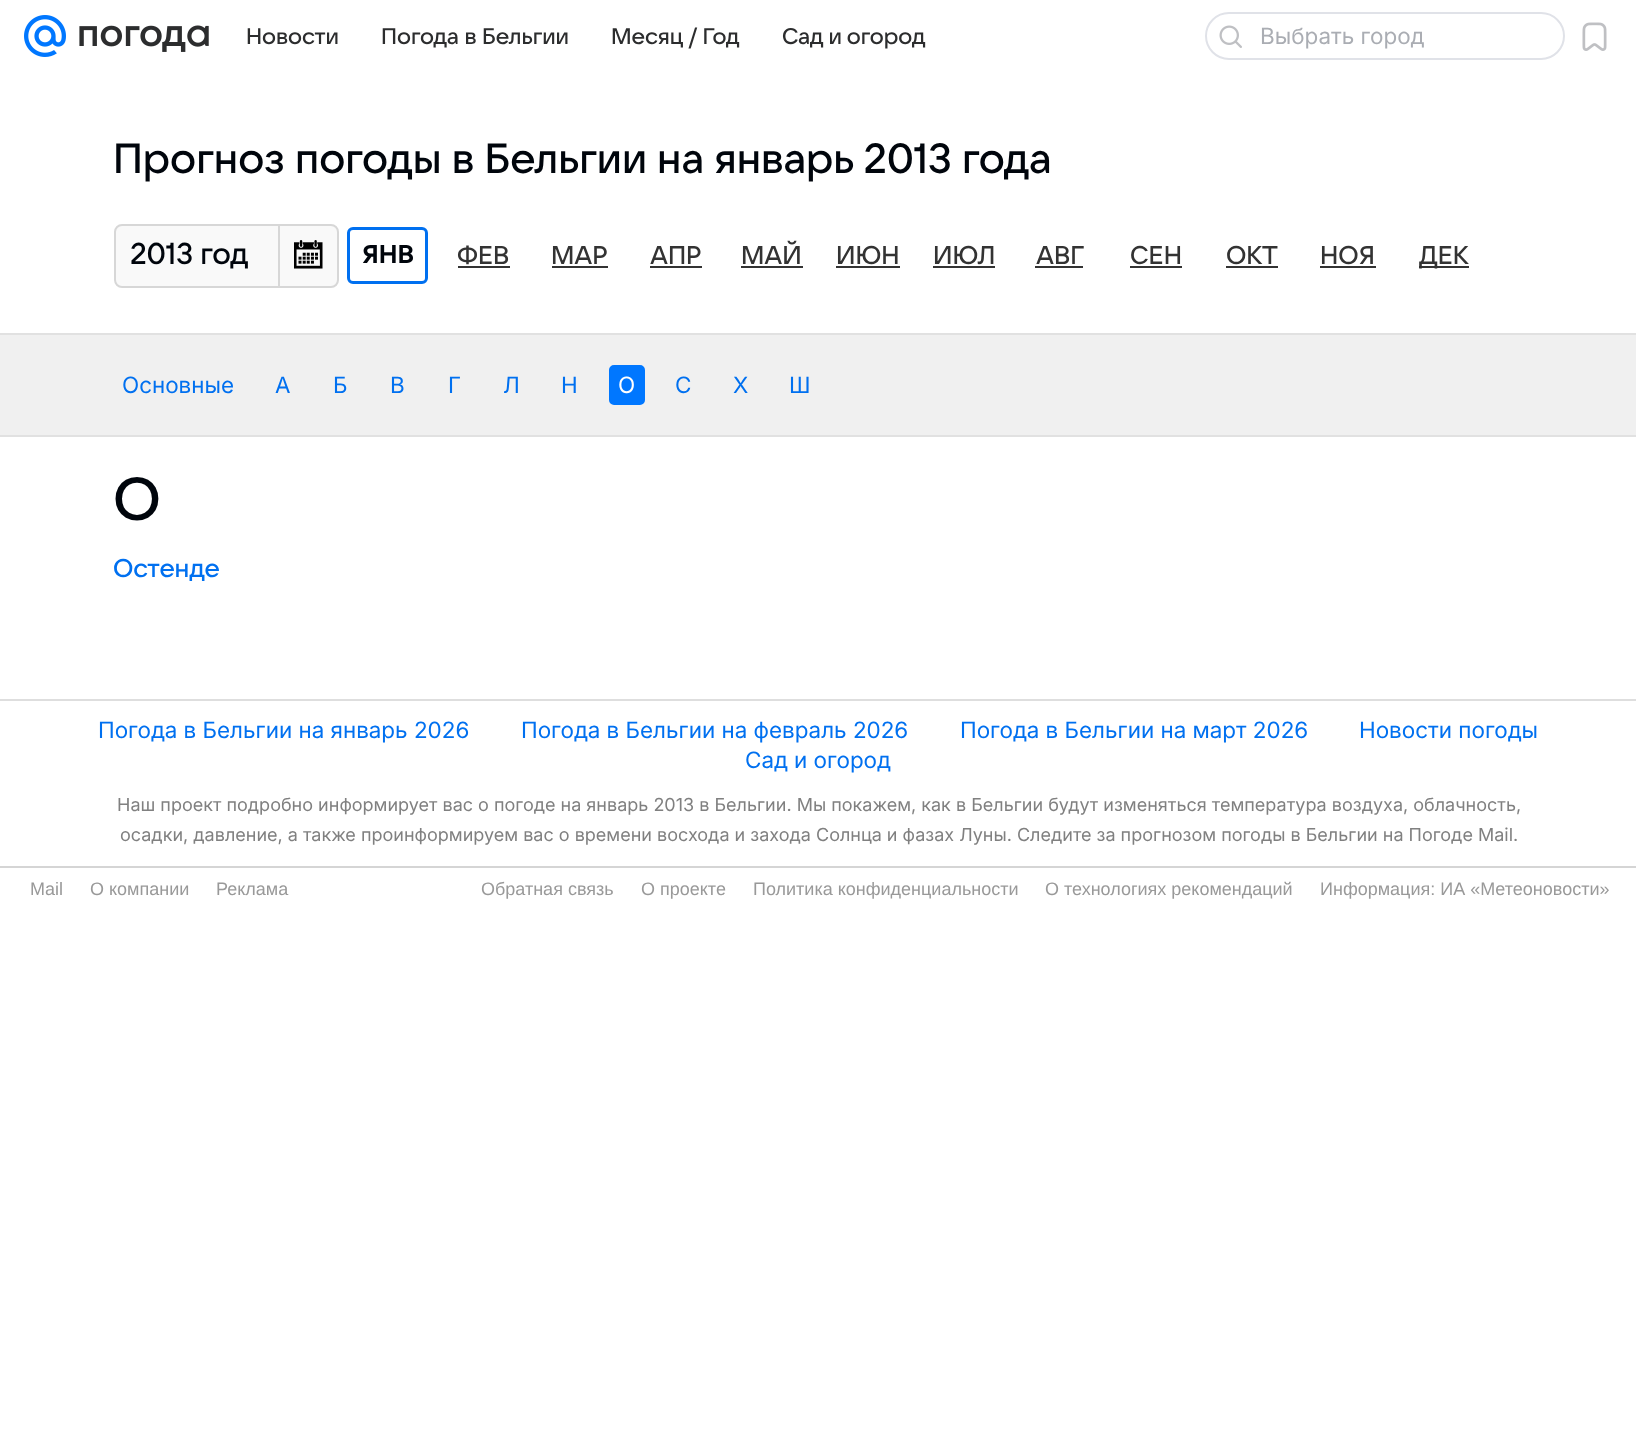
<?xml version="1.0" encoding="UTF-8"?>
<svg xmlns="http://www.w3.org/2000/svg" width="1636" height="1438">
    <defs>
        <clipPath id="clip1"><rect x="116" y="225" width="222" height="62" rx="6"/></clipPath>
        <filter id="blur1" x="-50%" y="-200%" width="200%" height="500%"><feGaussianBlur stdDeviation="1.5"/></filter>
    </defs>
    <rect width="100%" height="100%" fill="#FFFFFF"/>
    <image x="24" y="15" width="42" height="42" href="img_01.png"/>
    <image x="79" y="25" width="130" height="27" href="img_02.png"/>
    <text x="246" y="44" font-family="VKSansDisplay" font-size="22.5" font-weight="500" fill="#2C2D2E">Новости</text>
    <text x="381" y="44" font-family="VKSansDisplay" font-size="22.5" font-weight="500" fill="#2C2D2E">Погода в Бельгии</text>
    <text x="611" y="44" font-family="VKSansDisplay" font-size="22.5" font-weight="500" fill="#2C2D2E">Месяц / Год</text>
    <text x="782" y="44" font-family="VKSansDisplay" font-size="22.5" font-weight="500" fill="#2C2D2E">Сад и огород</text>
    <rect x="1206" y="13" width="358" height="46" rx="23" fill="none" stroke="#E0E2E8" stroke-width="2"/>
    <image x="1219" y="25" width="23" height="23" href="img_03.png"/>
    <text x="1260" y="44" font-family="Inter" font-size="22.5" fill="#AAADB3">Выбрать город</text>
    <image x="1582" y="22" width="25" height="29" href="img_04.png"/>
    <text x="113" y="173" font-family="VKSansDisplay" font-size="42" font-weight="500" fill="#00050C">Прогноз погоды в Бельгии на январь 2013 года</text>
    <g clip-path="url(#clip1)">
        <rect x="116" y="228" width="222" height="62" rx="8" fill="#000000" fill-opacity="0.2" filter="url(#blur1)"/>
    </g>
    <rect x="115" y="225" width="223" height="62" rx="7" fill="#F9F9F9" stroke="#D7D7D7" stroke-width="2"/>
    <text x="130" y="264" font-family="VKSansDisplay" font-size="30" font-weight="500" fill="#00050C">2013 год</text>
    <rect x="278" y="225" width="2" height="62" fill="#D7D7D7"/>
    <image x="294" y="240" width="29" height="29" href="img_05.png"/>
    <rect x="348.5" y="228.5" width="78" height="54" rx="4.5" fill="none" stroke="#0070F0" stroke-width="3"/>
    <text x="362" y="263" font-family="VKSansDisplay" font-size="25.5" font-weight="700" fill="#00050C">ЯНВ</text>
    <text x="457" y="264" font-family="VKSansDisplay" font-size="25.5" font-weight="500" fill="#333333">ФЕВ</text>
    <rect x="458" y="266" width="52" height="2" fill="#333333"/>
    <text x="551" y="264" font-family="VKSansDisplay" font-size="25.5" font-weight="500" fill="#333333">МАР</text>
    <rect x="552" y="266" width="56" height="2" fill="#333333"/>
    <text x="650" y="264" font-family="VKSansDisplay" font-size="25.5" font-weight="500" fill="#333333">АПР</text>
    <rect x="650" y="266" width="52" height="2" fill="#333333"/>
    <text x="741" y="264" font-family="VKSansDisplay" font-size="25.5" font-weight="500" fill="#333333">МАЙ</text>
    <rect x="741" y="266" width="62" height="2" fill="#333333"/>
    <text x="836" y="264" font-family="VKSansDisplay" font-size="25.5" font-weight="500" fill="#333333">ИЮН</text>
    <rect x="836" y="266" width="64" height="2" fill="#333333"/>
    <text x="933" y="264" font-family="VKSansDisplay" font-size="25.5" font-weight="500" fill="#333333">ИЮЛ</text>
    <rect x="933" y="266" width="62" height="2" fill="#333333"/>
    <text x="1036" y="264" font-family="VKSansDisplay" font-size="25.5" font-weight="500" fill="#333333">АВГ</text>
    <rect x="1035" y="266" width="48" height="2" fill="#333333"/>
    <text x="1130" y="264" font-family="VKSansDisplay" font-size="25.5" font-weight="500" fill="#333333">СЕН</text>
    <rect x="1130" y="266" width="52" height="2" fill="#333333"/>
    <text x="1226" y="264" font-family="VKSansDisplay" font-size="25.5" font-weight="500" fill="#333333">ОКТ</text>
    <rect x="1226" y="266" width="52" height="2" fill="#333333"/>
    <text x="1320" y="264" font-family="VKSansDisplay" font-size="25.5" font-weight="500" fill="#333333">НОЯ</text>
    <rect x="1320" y="266" width="56" height="2" fill="#333333"/>
    <rect x="1419" y="266" width="50" height="2" fill="#333333"/>
    <text x="1419" y="264" font-family="VKSansDisplay" font-size="25.5" font-weight="500" fill="#333333">ДЕК</text>
    <rect x="0" y="335" width="1636" height="100" fill="#F0F0F0"/>
    <rect x="0" y="333" width="1636" height="2" fill="#E1E1E1"/>
    <rect x="0" y="435" width="1636" height="2" fill="#E1E1E1"/>
    <text x="122" y="393" font-family="Inter" font-size="22.5" fill="#0070F0">Основные</text>
    <text x="275" y="393" font-family="Inter" font-size="22.5" fill="#0070F0">А</text>
    <text x="333" y="393" font-family="Inter" font-size="22.5" fill="#0070F0">Б</text>
    <text x="390" y="393" font-family="Inter" font-size="22.5" fill="#0070F0">В</text>
    <text x="448" y="393" font-family="Inter" font-size="22.5" fill="#0070F0">Г</text>
    <text x="503" y="393" font-family="Inter" font-size="22.5" fill="#0070F0">Л</text>
    <text x="561" y="393" font-family="Inter" font-size="22.5" fill="#0070F0">Н</text>
    <rect x="610" y="366" width="34" height="38" rx="4" fill="#0077FF" stroke="#0077FF" stroke-width="2"/>
    <text x="618" y="393" font-family="Inter" font-size="22.5" fill="#FFFFFF">О</text>
    <text x="675" y="393" font-family="Inter" font-size="22.5" fill="#0070F0">С</text>
    <text x="733" y="393" font-family="Inter" font-size="22.5" fill="#0070F0">Х</text>
    <text x="789" y="393" font-family="Inter" font-size="22.5" fill="#0070F0">Ш</text>
    <text x="113" y="520" font-family="VKSansDisplay" font-size="60" font-weight="500" fill="#00050C">О</text>
    <text x="113" y="577" font-family="VKSansDisplay" font-size="25.5" font-weight="500" fill="#0070F0">Остенде</text>
    <rect x="0" y="699" width="1636" height="2" fill="#DEDEDE"/>
    <text x="98" y="738" font-family="Inter" font-size="22.5" fill="#0070F0">Погода в Бельгии на январь 2026</text>
    <text x="521" y="738" font-family="Inter" font-size="22.5" fill="#0070F0">Погода в Бельгии на февраль 2026</text>
    <text x="960" y="738" font-family="Inter" font-size="22.5" fill="#0070F0">Погода в Бельгии на март 2026</text>
    <text x="1359" y="738" font-family="Inter" font-size="22.5" fill="#0070F0">Новости погоды</text>
    <text x="745" y="768" font-family="Inter" font-size="22.5" fill="#0070F0">Сад и огород</text>
    <text x="117" y="811" font-family="'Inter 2'" font-size="18" fill="#808080">Наш проект подробно информирует вас о погоде на январь 2013 в Бельгии. Мы покажем, как в Бельгии будут изменяться температура воздуха, облачность,</text>
    <text x="120" y="841" font-family="'Inter 2'" font-size="18" fill="#808080">осадки, давление, а также проинформируем вас о времени восхода и захода Солнца и фазах Луны. Следите за прогнозом погоды в Бельгии на Погоде Mail.</text>
    <rect x="0" y="866" width="1636" height="2" fill="#D5D5D5"/>
    <text x="30" y="895" font-family="Liberation Sans" font-size="18" fill="#999999">Mail</text>
    <text x="90" y="895" font-family="Liberation Sans" font-size="18" fill="#999999">О компании</text>
    <text x="216" y="895" font-family="Liberation Sans" font-size="18" fill="#999999">Реклама</text>
    <text x="481" y="895" font-family="Liberation Sans" font-size="18" fill="#999999">Обратная связь</text>
    <text x="641" y="895" font-family="Liberation Sans" font-size="18" fill="#999999">О проекте</text>
    <text x="753" y="895" font-family="Liberation Sans" font-size="18" fill="#999999">Политика конфиденциальности</text>
    <text x="1045" y="895" font-family="Liberation Sans" font-size="18" fill="#999999">О технологиях рекомендаций</text>
    <text x="1320" y="895" font-family="Liberation Sans" font-size="18" fill="#999999">Информация: ИА «Метеоновости»</text>
</svg>
